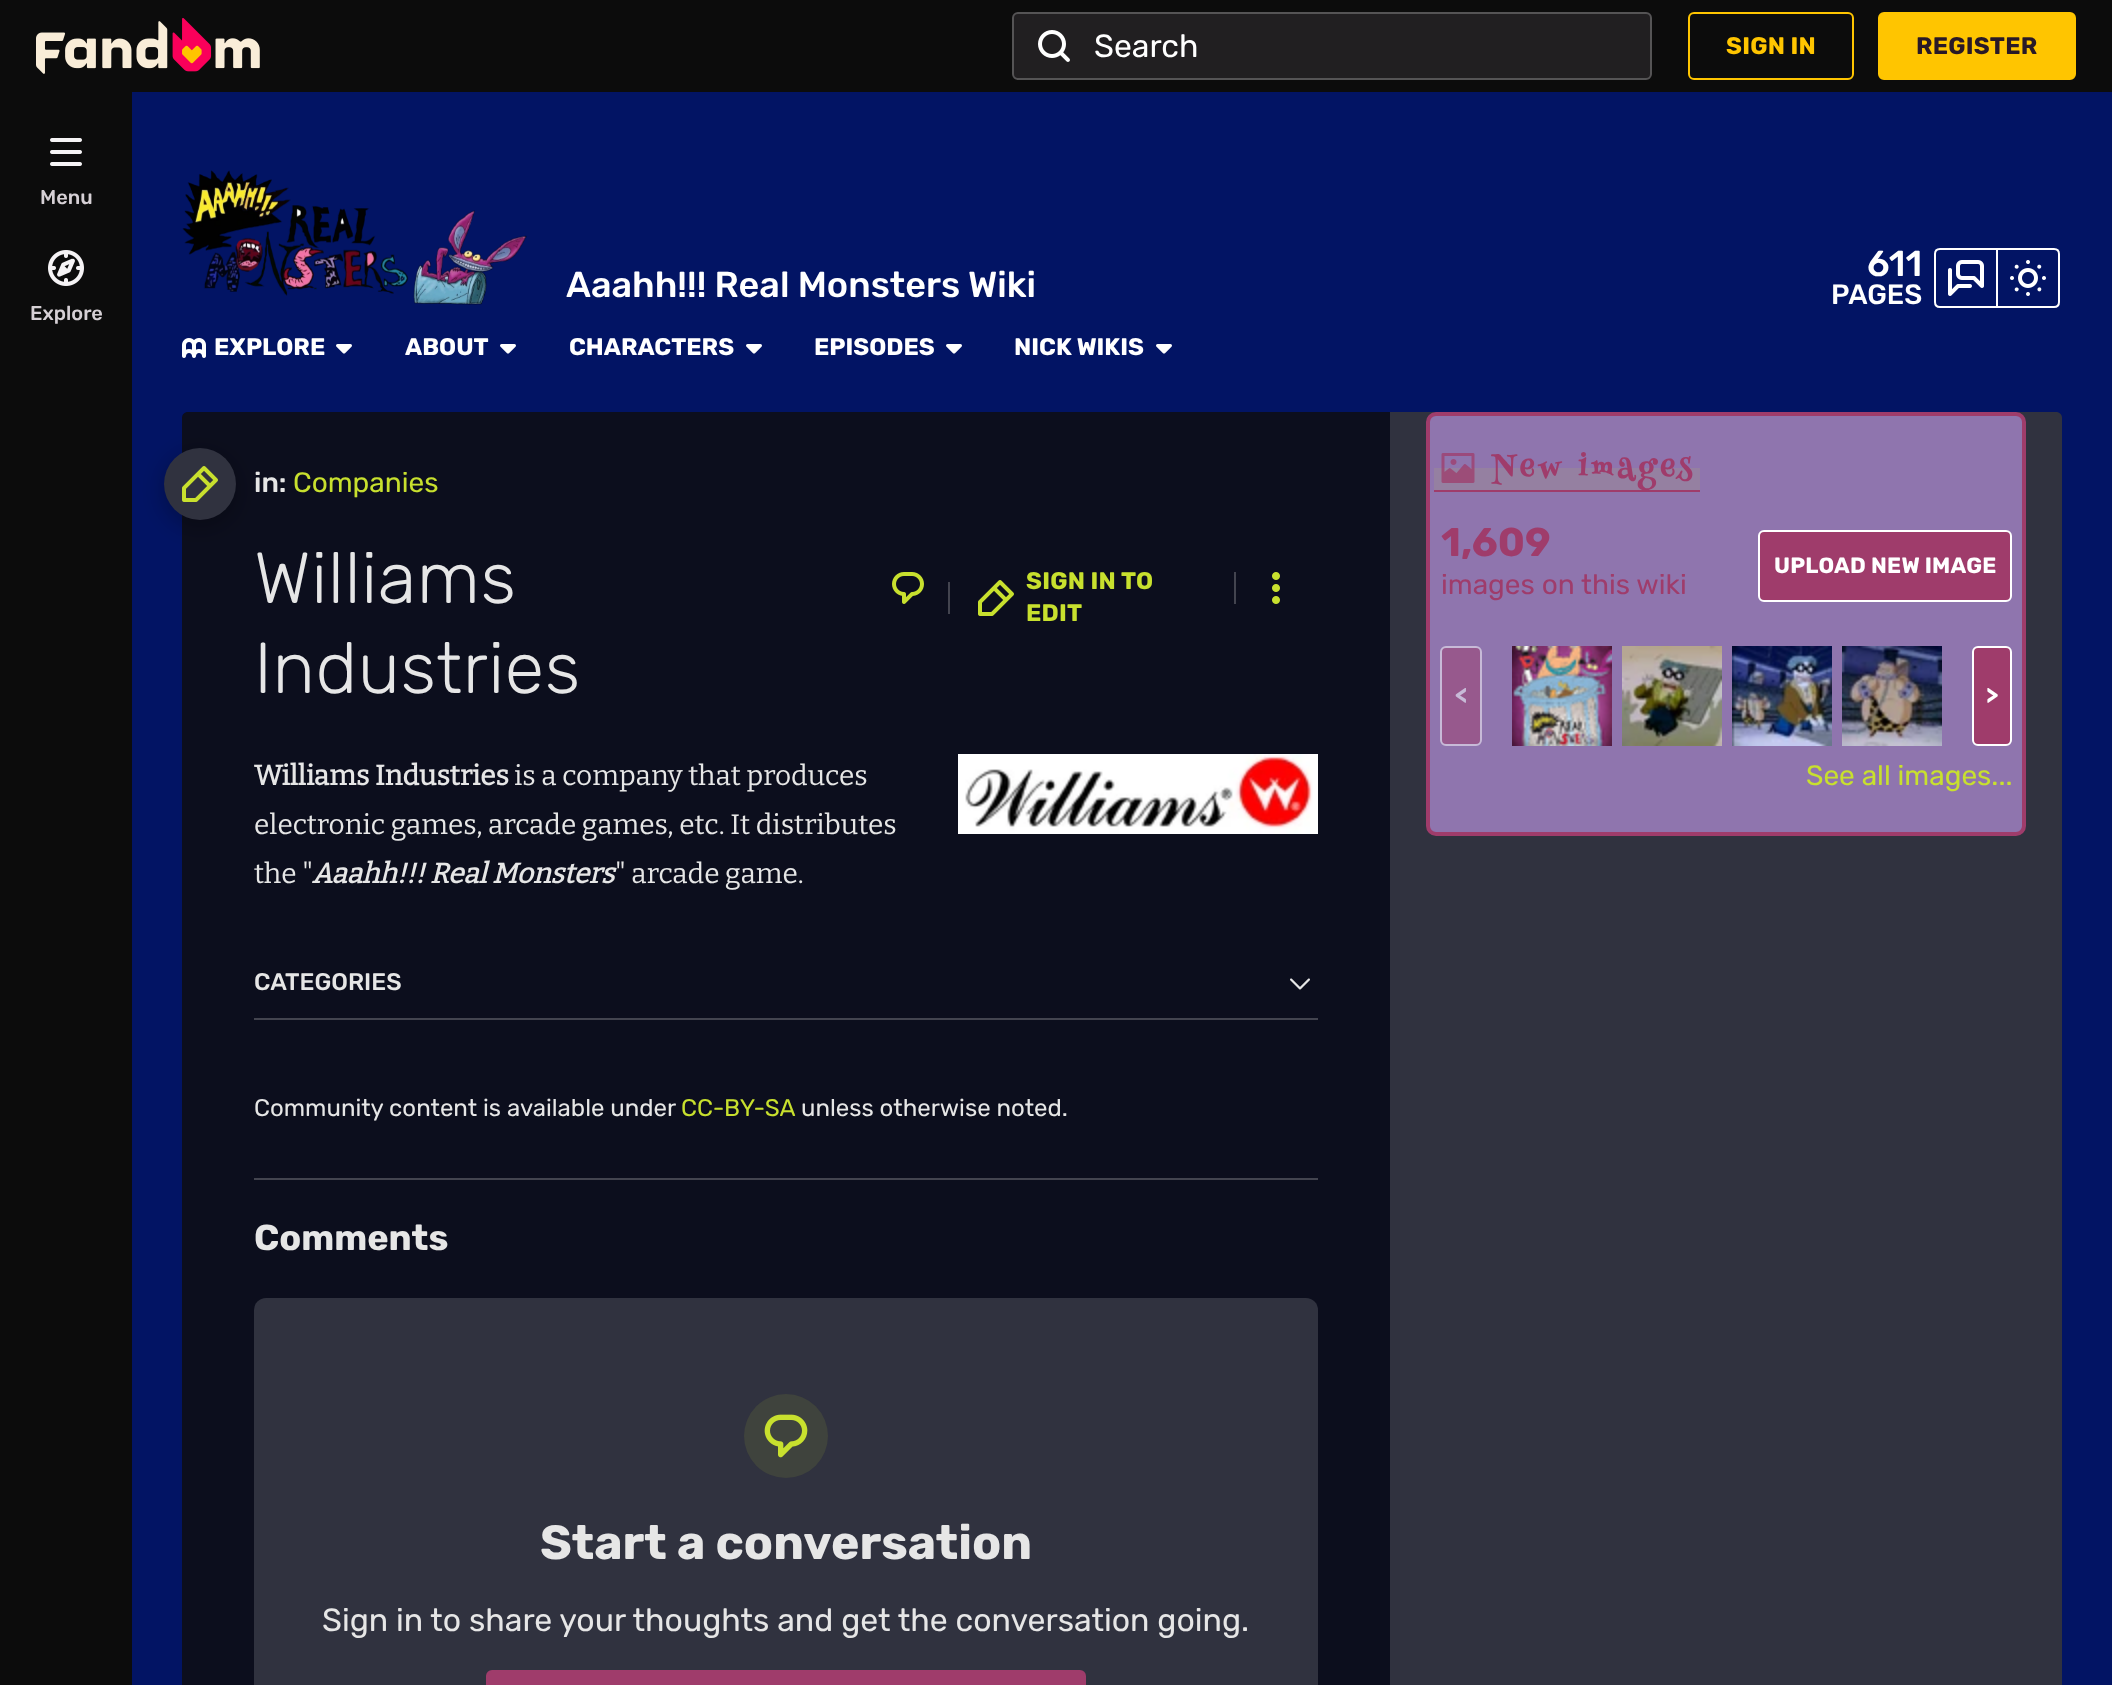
<?xml version="1.0" encoding="UTF-8"?>
<svg xmlns="http://www.w3.org/2000/svg" width="2112" height="1685">
    <defs>
        <filter id="blur1" x="-50%" y="-200%" width="200%" height="500%"><feGaussianBlur stdDeviation="12"/></filter>
        <linearGradient id="g1" gradientUnits="userSpaceOnUse" x1="1567" y1="490" x2="1567" y2="450"><stop offset="0.54" stop-color="#9580A1"/><stop offset="0.54" stop-color="#8F75AE"/><stop offset="1" stop-color="#8F75AE"/></linearGradient>
    </defs>
    <rect width="100%" height="100%" fill="#021464"/>
    <rect x="0" y="0" width="2112" height="92" fill="#0C0C0C"/>
    <image x="36" y="18" width="224" height="56" href="img_01.png"/>
    <rect x="1012" y="12" width="640" height="68" rx="6" fill="#211F21"/>
    <rect x="1013" y="13" width="638" height="66" rx="5" fill="none" stroke="#F5F3F5" stroke-opacity="0.25" stroke-width="2"/>
    <image x="1038" y="30" width="32" height="32" href="img_02.png"/>
    <text x="1094" y="57" font-family="Rubik" font-size="32" fill="#FFFFFF">Search</text>
    <rect x="1689" y="13" width="164" height="66" rx="5" fill="none" stroke="#FFC500" stroke-width="2"/>
    <text x="1726" y="54" font-family="Rubik" font-size="24" font-weight="700" letter-spacing="0.25" fill="#FFC500">SIGN IN</text>
    <rect x="1879" y="13" width="196" height="66" rx="5" fill="#FFC500" stroke="#FFC500" stroke-width="2"/>
    <text x="1916" y="54" font-family="Rubik" font-size="24" font-weight="700" letter-spacing="0.25" fill="#291927">REGISTER</text>
    <path d="M 188 412 H 1390 V 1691 H 188 C 184.5 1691 182 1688.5 182 1685 V 418 C 182 414.5 184.5 412 188 412 Z" fill="#0C0E1D"/>
    <rect x="164" y="454" width="72" height="72" rx="36" fill="#000000" fill-opacity="0.3" filter="url(#blur1)"/>
    <rect x="0" y="92" width="132" height="1593" fill="#0C0C0C"/>
    <image x="50" y="138" width="32" height="28" href="img_03.png"/>
    <text x="40" y="204" font-family="Rubik" font-size="20" font-weight="500" fill="#D6D0D5">Menu</text>
    <image x="48" y="250" width="36" height="36" href="img_04.png"/>
    <text x="30" y="320" font-family="Rubik" font-size="20" font-weight="500" fill="#D6D0D5">Explore</text>
    <image x="182" y="170" width="345" height="135" href="img_05.png"/>
    <text x="566" y="297" font-family="Rubik" font-size="36" font-weight="500" fill="#FFFFFF">Aaahh!!! Real Monsters Wiki</text>
    <text x="1867" y="276" font-family="Rubik" font-size="36" font-weight="500" fill="#FFFFFF">611</text>
    <text x="1831" y="304" font-family="Rubik" font-size="28" font-weight="500" fill="#FFFFFF">PAGES</text>
    <path d="M 1940 249 H 1997 V 307 H 1940 C 1937 307 1935 305 1935 302 V 254 C 1935 251 1937 249 1940 249 Z" fill="none" stroke="#FFFFFF" stroke-width="2"/>
    <image x="1948" y="260" width="36" height="36" href="img_06.png"/>
    <path d="M 1997 249 H 2054 C 2057 249 2059 251 2059 254 V 302 C 2059 305 2057 307 2054 307 H 1997 Z" fill="none" stroke="#FFFFFF" stroke-width="2"/>
    <image x="2010" y="260" width="36" height="36" href="img_07.png"/>
    <image x="182" y="338" width="24" height="20" href="img_08.png"/>
    <text x="214" y="355" font-family="Rubik" font-size="24" font-weight="700" fill="#FFFFFF">EXPLORE</text>
    <image x="336" y="344" width="16" height="10" href="img_09.png"/>
    <text x="405" y="355" font-family="Rubik" font-size="24" font-weight="700" fill="#FFFFFF">ABOUT</text>
    <image x="500" y="344" width="16" height="10" href="img_09.png"/>
    <text x="569" y="355" font-family="Rubik" font-size="24" font-weight="700" fill="#FFFFFF">CHARACTERS</text>
    <image x="746" y="344" width="16" height="10" href="img_09.png"/>
    <text x="814" y="355" font-family="Rubik" font-size="24" font-weight="700" fill="#FFFFFF">EPISODES</text>
    <image x="946" y="344" width="16" height="10" href="img_09.png"/>
    <text x="1014" y="355" font-family="Rubik" font-size="24" font-weight="700" fill="#FFFFFF">NICK WIKIS</text>
    <image x="1156" y="344" width="16" height="10" href="img_09.png"/>
    <circle cx="200" cy="484" r="36" fill="#30323F"/>
    <image x="182" y="466" width="36" height="36" href="img_10.png"/>
    <text x="254" y="492" font-family="Rubik" font-size="28" font-weight="500" fill="#E6E6E6">in:</text>
    <text x="293" y="492" font-family="Rubik" font-size="28" fill="#C8E02E">Companies</text>
    <text font-family="Rubik" font-size="72" font-weight="300" letter-spacing="0.5" fill="#E6E6E6">
        <tspan x="254" y="603">Williams</tspan>
        <tspan x="254" y="693">Industries</tspan>
    </text>
    <image x="892" y="572" width="32" height="32" href="img_11.png"/>
    <rect x="948" y="582" width="2" height="32" fill="#43444F"/>
    <image x="978" y="580" width="36" height="36" href="img_12.png"/>
    <text font-family="Rubik" font-size="24" font-weight="700" letter-spacing="0.25" fill="#C8E02E">
        <tspan x="1026" y="589">SIGN IN TO</tspan>
        <tspan x="1026" y="621">EDIT</tspan>
    </text>
    <rect x="1234" y="572" width="2" height="32" fill="#43444F"/>
    <image x="1272" y="572" width="8" height="32" href="img_13.png"/>
    <text x="254" y="785" font-family="Bitter" font-size="28" font-weight="700" fill="#E6E6E6">Williams Industries</text>
    <text x="514" y="785" font-family="Bitter" font-size="28" font-weight="100" fill="#E6E6E6">is a company that produces</text>
    <text font-family="Bitter" font-size="28" font-weight="100" fill="#E6E6E6">
        <tspan x="254" y="834">electronic games, arcade games, etc. It distributes</tspan>
        <tspan x="254" y="883">the "</tspan>
    </text>
    <text x="312" y="883" font-family="Bitter" font-size="28" font-weight="700" font-style="italic" fill="#E6E6E6">Aaahh!!! Real Monsters</text>
    <text x="615" y="883" font-family="Bitter" font-size="28" font-weight="100" fill="#E6E6E6">" arcade game.</text>
    <image x="958" y="754" width="360" height="80" href="img_14.png"/>
    <rect x="254" y="1018" width="1064" height="2" fill="#43444F"/>
    <text x="254" y="990" font-family="Rubik" font-size="24" font-weight="500" fill="#E6E6E6">CATEGORIES</text>
    <image x="1290" y="978" width="20" height="12" href="img_15.png"/>
    <text x="254" y="1116" font-family="Rubik" font-size="24" fill="#E6E6E6">Community content is available under</text>
    <text x="681" y="1116" font-family="Rubik" font-size="24" fill="#C8E02E">CC-BY-SA</text>
    <text x="801" y="1116" font-family="Rubik" font-size="24" fill="#E6E6E6">unless otherwise noted.</text>
    <rect x="254" y="1178" width="1064" height="2" fill="#43444F"/>
    <text x="254" y="1250" font-family="Rubik" font-size="36" font-weight="700" fill="#E6E6E6">Comments</text>
    <rect x="254" y="1298" width="1064" height="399" rx="12" fill="#30323F"/>
    <circle cx="786" cy="1436" r="42" fill="#3F433D"/>
    <image x="764" y="1414" width="44" height="44" href="img_16.png"/>
    <text x="540" y="1559" font-family="Rubik" font-size="48" font-weight="700" fill="#E6E6E6">Start a conversation</text>
    <text x="322" y="1631" font-family="Rubik" font-size="32" fill="#E6E6E6">Sign in to share your thoughts and get the conversation going.</text>
    <rect x="487" y="1671" width="598" height="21" rx="5" fill="#9F3C6B" stroke="#9F3C6B" stroke-width="2"/>
    <path d="M 1390 412 H 2056 C 2059.5 412 2062 414.5 2062 418 V 1685 C 2062 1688.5 2059.5 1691 2056 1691 H 1390 Z" fill="#30323F"/>
    <rect x="1428" y="414" width="596" height="420" rx="8" fill="#8F75AE" stroke="#9F3C6B" stroke-width="4"/>
    <rect x="1434" y="468" width="266" height="22" fill="url(#g1)"/>
    <rect x="1434" y="490" width="266" height="2" fill="#9F3C6B"/>
    <image x="1441" y="453" width="34" height="30" href="img_17.png"/>
    <text x="1491" y="478" font-family="Henny Penny" font-size="32" font-weight="700" letter-spacing="4" fill="#9F3C6B">New images</text>
    <text x="1441" y="556" font-family="Rubik" font-size="40" font-weight="700" fill="#9F3C6B">1,609</text>
    <text x="1441" y="594" font-family="Rubik" font-size="28" fill="#9F3C6B">images on this wiki</text>
    <rect x="1759" y="531" width="252" height="70" rx="5" fill="#9F3C6B" stroke="#FFFFFF" stroke-width="2"/>
    <text x="1774" y="573" font-family="Rubik" font-size="22" font-weight="700" letter-spacing="0.25" fill="#FFFFFF">UPLOAD NEW IMAGE</text>
    <rect x="1441" y="647" width="40" height="98" rx="5" fill="#97598D" stroke="#C7BAD7" stroke-width="2"/>
    <text x="1455" y="703" font-family="Rubik" font-size="24" font-weight="700" letter-spacing="0.25" fill="#C7BAD7">&lt;</text>
    <image x="1512" y="646" width="100" height="100" href="img_18.png"/>
    <image x="1622" y="646" width="100" height="100" href="img_19.png"/>
    <image x="1732" y="646" width="100" height="100" href="img_20.png"/>
    <image x="1842" y="646" width="100" height="100" href="img_21.png"/>
    <rect x="1973" y="647" width="38" height="98" rx="5" fill="#9F3C6B" stroke="#FFFFFF" stroke-width="2"/>
    <text x="1986" y="703" font-family="Rubik" font-size="24" font-weight="700" letter-spacing="0.25" fill="#FFFFFF">&gt;</text>
    <text x="1806" y="785" font-family="Rubik" font-size="28" fill="#C8E02E">See all images...</text>
</svg>
